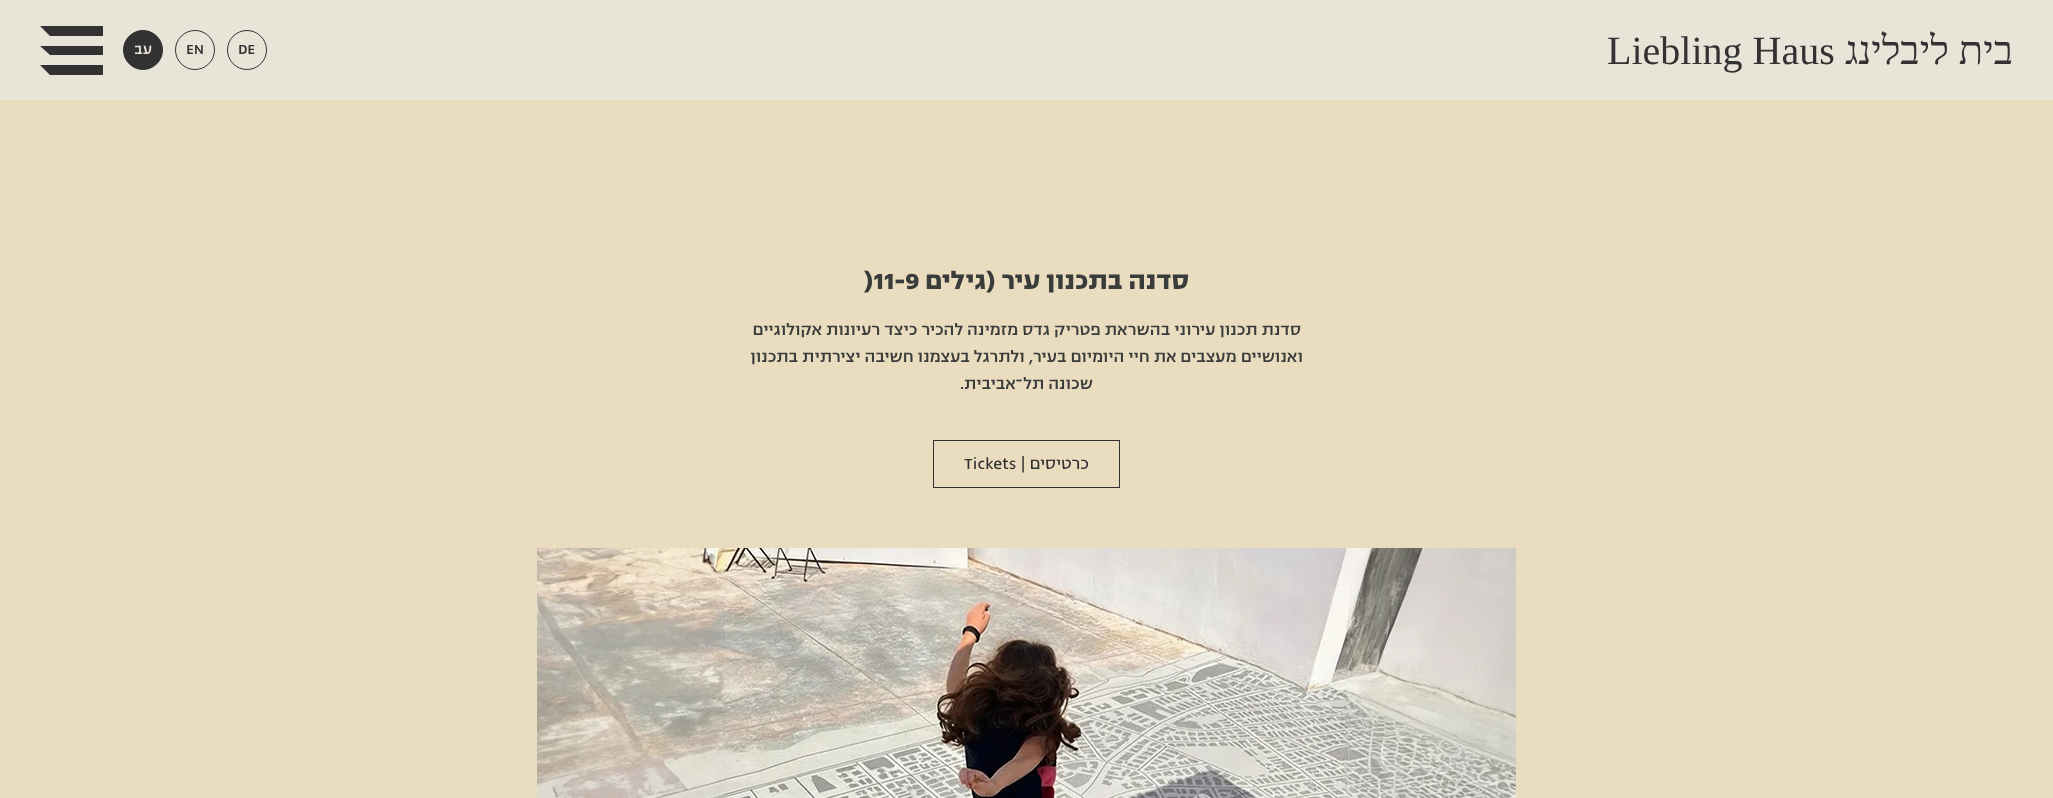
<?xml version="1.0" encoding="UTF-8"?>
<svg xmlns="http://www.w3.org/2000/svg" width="2053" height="798">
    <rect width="100%" height="100%" fill="#E9E4D8"/>
    <text x="2013" y="64" font-family="Liberation Serif" font-size="40" direction="rtl" fill="#323232">בית ליבלינג</text>
    <text x="1607" y="64" font-family="Liberation Serif" font-size="40" fill="#323232">Liebling Haus</text>
    <circle cx="247" cy="50" r="19.5" fill="none" stroke="#323232"/>
    <text x="238" y="54" font-family="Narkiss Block" font-size="16" font-weight="500" fill="#323232">DE</text>
    <circle cx="195" cy="50" r="19.5" fill="none" stroke="#323232"/>
    <text x="186" y="54" font-family="Narkiss Block" font-size="16" font-weight="500" fill="#323232">EN</text>
    <circle cx="143" cy="50" r="19.5" fill="#323232" stroke="#323232"/>
    <text x="152" y="54" font-family="Narkiss Block" font-size="16" font-weight="500" direction="rtl" fill="#E9E4D8">עב</text>
    <path d="M 40 26 L 50 36 H 103 V 26 Z M 40 46 L 50 55 H 103 V 46 Z M 40 65 L 50 75 H 103 V 65 Z" fill="#323232" fill-rule="evenodd"/>
    <rect x="0" y="100" width="2053" height="698" fill="#E9DCBF"/>
    <text x="1189" y="289" font-family="Narkiss Block" font-size="28" font-weight="700" direction="rtl" fill="#393C3B">סדנה בתכנון עיר (גילים</text>
    <text x="864" y="289" font-family="Narkiss Block" font-size="28" font-weight="700" fill="#393C3B">)11-9</text>
    <text x="1301" y="335" font-family="Narkiss Block" font-size="18" font-weight="500" direction="rtl" fill="#393C3B">סדנת תכנון עירוני בהשראת פטריק גדס מזמינה להכיר כיצד רעיונות אקולוגיים</text>
    <text x="1303" y="362" font-family="Narkiss Block" font-size="18" font-weight="500" direction="rtl" fill="#393C3B">ואנושיים מעצבים את חיי היומיום בעיר, ולתרגל בעצמנו חשיבה יצירתית בתכנון</text>
    <text x="1093" y="389" font-family="Narkiss Block" font-size="18" font-weight="500" direction="rtl" fill="#393C3B">שכונה תל־אביבית.</text>
    <rect x="933.5" y="440.5" width="186" height="47" fill="none" stroke="#323232"/>
    <text x="1089" y="469" font-family="Narkiss Block" font-size="18" direction="rtl" fill="#323232">כרטיסים |</text>
    <text x="964" y="469" font-family="Narkiss Block" font-size="18" fill="#323232">Tickets</text>
    <image x="537" y="548" width="979" height="250" href="img_01.png"/>
</svg>
